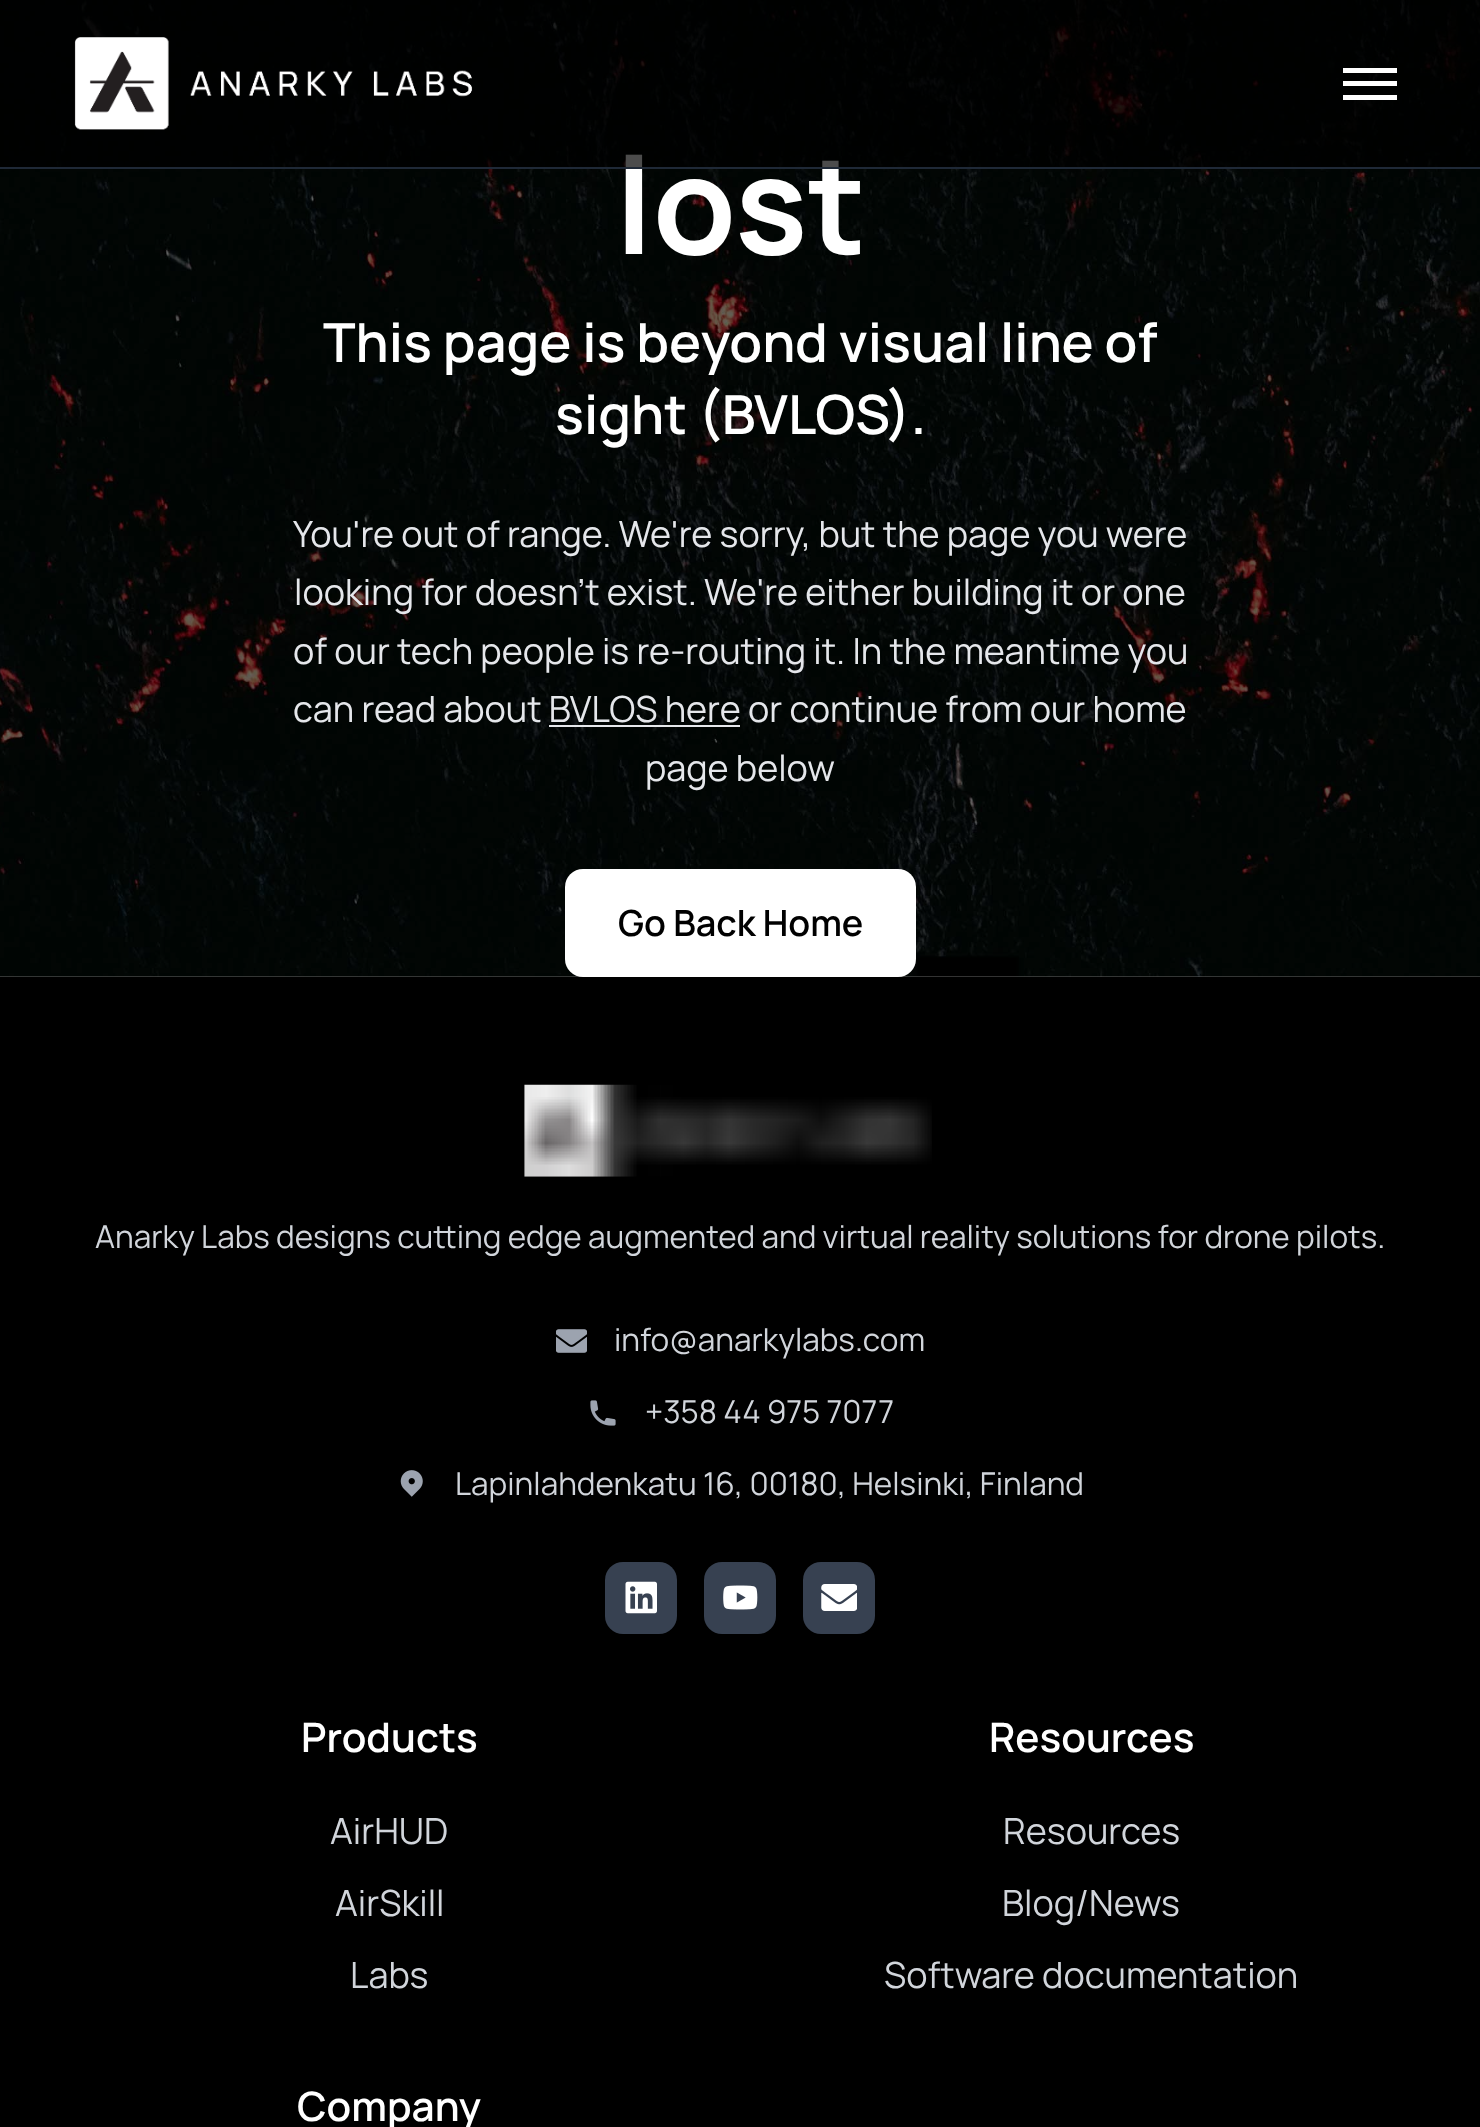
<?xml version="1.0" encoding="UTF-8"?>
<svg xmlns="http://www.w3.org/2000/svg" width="1480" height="2127">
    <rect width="100%" height="100%" fill="#666666"/>
    <image x="0" y="0" width="1480" height="977" href="img_02.png"/>
    <text x="615" y="254" font-family="Manrope" font-size="135" font-weight="700" fill="#FFFFFF">lost</text>
    <rect x="0" y="0" width="1480" height="167" fill="#000000" fill-opacity="0.7"/>
    <rect x="0" y="167" width="1480" height="2" fill="#1F2937"/>
    <image x="74" y="37" width="399" height="93" href="img_01.png"/>
    <rect x="1343" y="68" width="54" height="5" fill="#FFFFFF"/>
    <rect x="1343" y="81" width="54" height="5" fill="#FFFFFF"/>
    <rect x="1343" y="95" width="54" height="5" fill="#FFFFFF"/>
    <text x="323" y="362" font-family="Manrope" font-size="54" font-weight="600" fill="#FFFFFF">This page is beyond visual line of</text>
    <text x="555" y="434" font-family="Manrope" font-size="54" font-weight="600" fill="#FFFFFF">sight (BVLOS).</text>
    <text x="293" y="547" font-family="Manrope" font-size="36" fill="#E5E7EB">You're out of range. We're sorry, but the page you were</text>
    <text x="294" y="605" font-family="Manrope" font-size="36" fill="#E5E7EB">looking for doesn't exist. We're either building it or one</text>
    <text font-family="Manrope" font-size="36" fill="#E5E7EB">
        <tspan x="293" y="664">of our tech people is re-routing it. In the meantime you</tspan>
        <tspan x="293" y="722">can read about BVLOS here or continue from our home</tspan>
    </text>
    <rect x="549" y="725" width="191" height="2" fill="#E5E7EB"/>
    <text x="645" y="781" font-family="Manrope" font-size="36" fill="#E5E7EB">page below</text>
    <rect x="565" y="869" width="351" height="108" rx="18" fill="#FFFFFF"/>
    <text x="618" y="936" font-family="Manrope" font-size="36" font-weight="600" fill="#000000">Go Back Home</text>
    <rect x="0" y="977" width="1480" height="1150" fill="#000000"/>
    <image x="524" y="1084" width="408" height="93" href="img_03.png"/>
    <text x="95" y="1248" font-family="Manrope" font-size="31.5" fill="#D1D5DB">Anarky Labs designs cutting edge augmented and virtual reality solutions for drone pilots.</text>
    <image x="556" y="1329" width="31" height="24" href="img_04.png"/>
    <text x="614" y="1351" font-family="Manrope" font-size="31.5" fill="#D1D5DB">info@anarkylabs.com</text>
    <image x="590" y="1400" width="26" height="26" href="img_05.png"/>
    <text x="645" y="1423" font-family="Manrope" font-size="31.5" fill="#D1D5DB">+358 44 975 7077</text>
    <image x="400" y="1470" width="23" height="27" href="img_06.png"/>
    <text x="455" y="1495" font-family="Manrope" font-size="31.5" fill="#D1D5DB">Lapinlahdenkatu 16, 00180, Helsinki, Finland</text>
    <rect x="605" y="1562" width="72" height="72" rx="18" fill="#374151"/>
    <image x="625" y="1581" width="32" height="33" href="img_07.png"/>
    <rect x="704" y="1562" width="72" height="72" rx="18" fill="#374151"/>
    <image x="723" y="1585" width="35" height="25" href="img_08.png"/>
    <rect x="803" y="1562" width="72" height="72" rx="18" fill="#374151"/>
    <image x="821" y="1584" width="36" height="27" href="img_09.png"/>
    <text x="301" y="1752" font-family="Manrope" font-size="40.5" font-weight="600" fill="#FFFFFF">Products</text>
    <text x="330" y="1844" font-family="Manrope" font-size="36" fill="#D1D5DB">AirHUD</text>
    <text x="335" y="1916" font-family="Manrope" font-size="36" fill="#D1D5DB">AirSkill</text>
    <text x="350" y="1988" font-family="Manrope" font-size="36" fill="#D1D5DB">Labs</text>
    <text x="989" y="1752" font-family="Manrope" font-size="40.5" font-weight="600" fill="#FFFFFF">Resources</text>
    <text x="1003" y="1844" font-family="Manrope" font-size="36" fill="#D1D5DB">Resources</text>
    <text x="1002" y="1916" font-family="Manrope" font-size="36" fill="#D1D5DB">Blog/News</text>
    <text x="884" y="1988" font-family="Manrope" font-size="36" fill="#D1D5DB">Software documentation</text>
    <text x="297" y="2121" font-family="Manrope" font-size="40.5" font-weight="600" fill="#FFFFFF">Company</text>
</svg>
